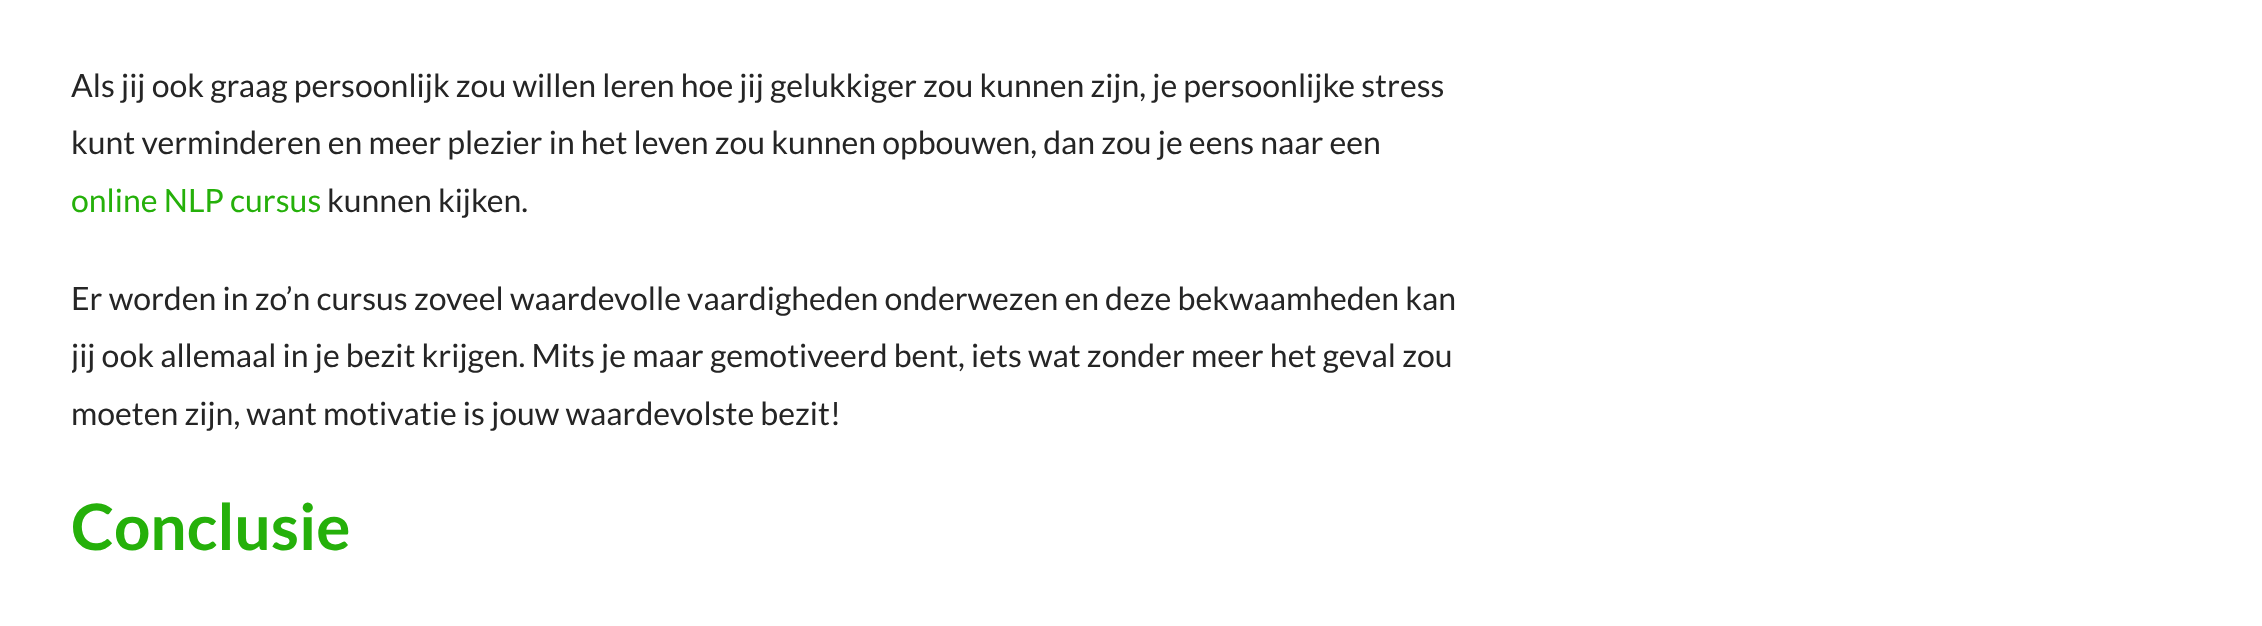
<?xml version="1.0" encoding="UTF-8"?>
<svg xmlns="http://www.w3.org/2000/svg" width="2262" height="626">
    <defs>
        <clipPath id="clip1"><rect x="72" y="0" width="1386" height="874"/></clipPath>
    </defs>
    <rect width="100%" height="100%" fill="#FFFFFF"/>
    <text font-family="Lato" font-size="32" fill="#252525">
        <tspan x="71" y="97">Als jij ook graag persoonlijk zou willen leren hoe jij gelukkiger zou kunnen zijn, je persoonlijke stress</tspan>
        <tspan x="71" y="154">kunt verminderen en meer plezier in het leven zou kunnen opbouwen, dan zou je eens naar een</tspan>
    </text>
    <text x="71" y="212" font-family="Lato" font-size="32" fill="#25B00A">online NLP cursus</text>
    <text x="327" y="212" font-family="Lato" font-size="32" fill="#252525">kunnen kijken.</text>
    <text x="71" y="310" font-family="Lato" font-size="32" fill="#252525">Er worden in zo’n cursus zoveel waardevolle vaardigheden onderwezen en deze bekwaamheden kan</text>
    <g clip-path="url(#clip1)">
        <text x="71" y="367" font-family="Lato" font-size="32" fill="#252525">jij ook allemaal in je bezit krijgen. Mits je maar gemotiveerd bent, iets wat zonder meer het geval zou</text>
    </g>
    <text x="71" y="425" font-family="Lato" font-size="32" fill="#252525">moeten zijn, want motivatie is jouw waardevolste bezit!</text>
    <text x="71" y="550" font-family="Lato" font-size="64" font-weight="700" fill="#25B00A">Conclusie</text>
</svg>
